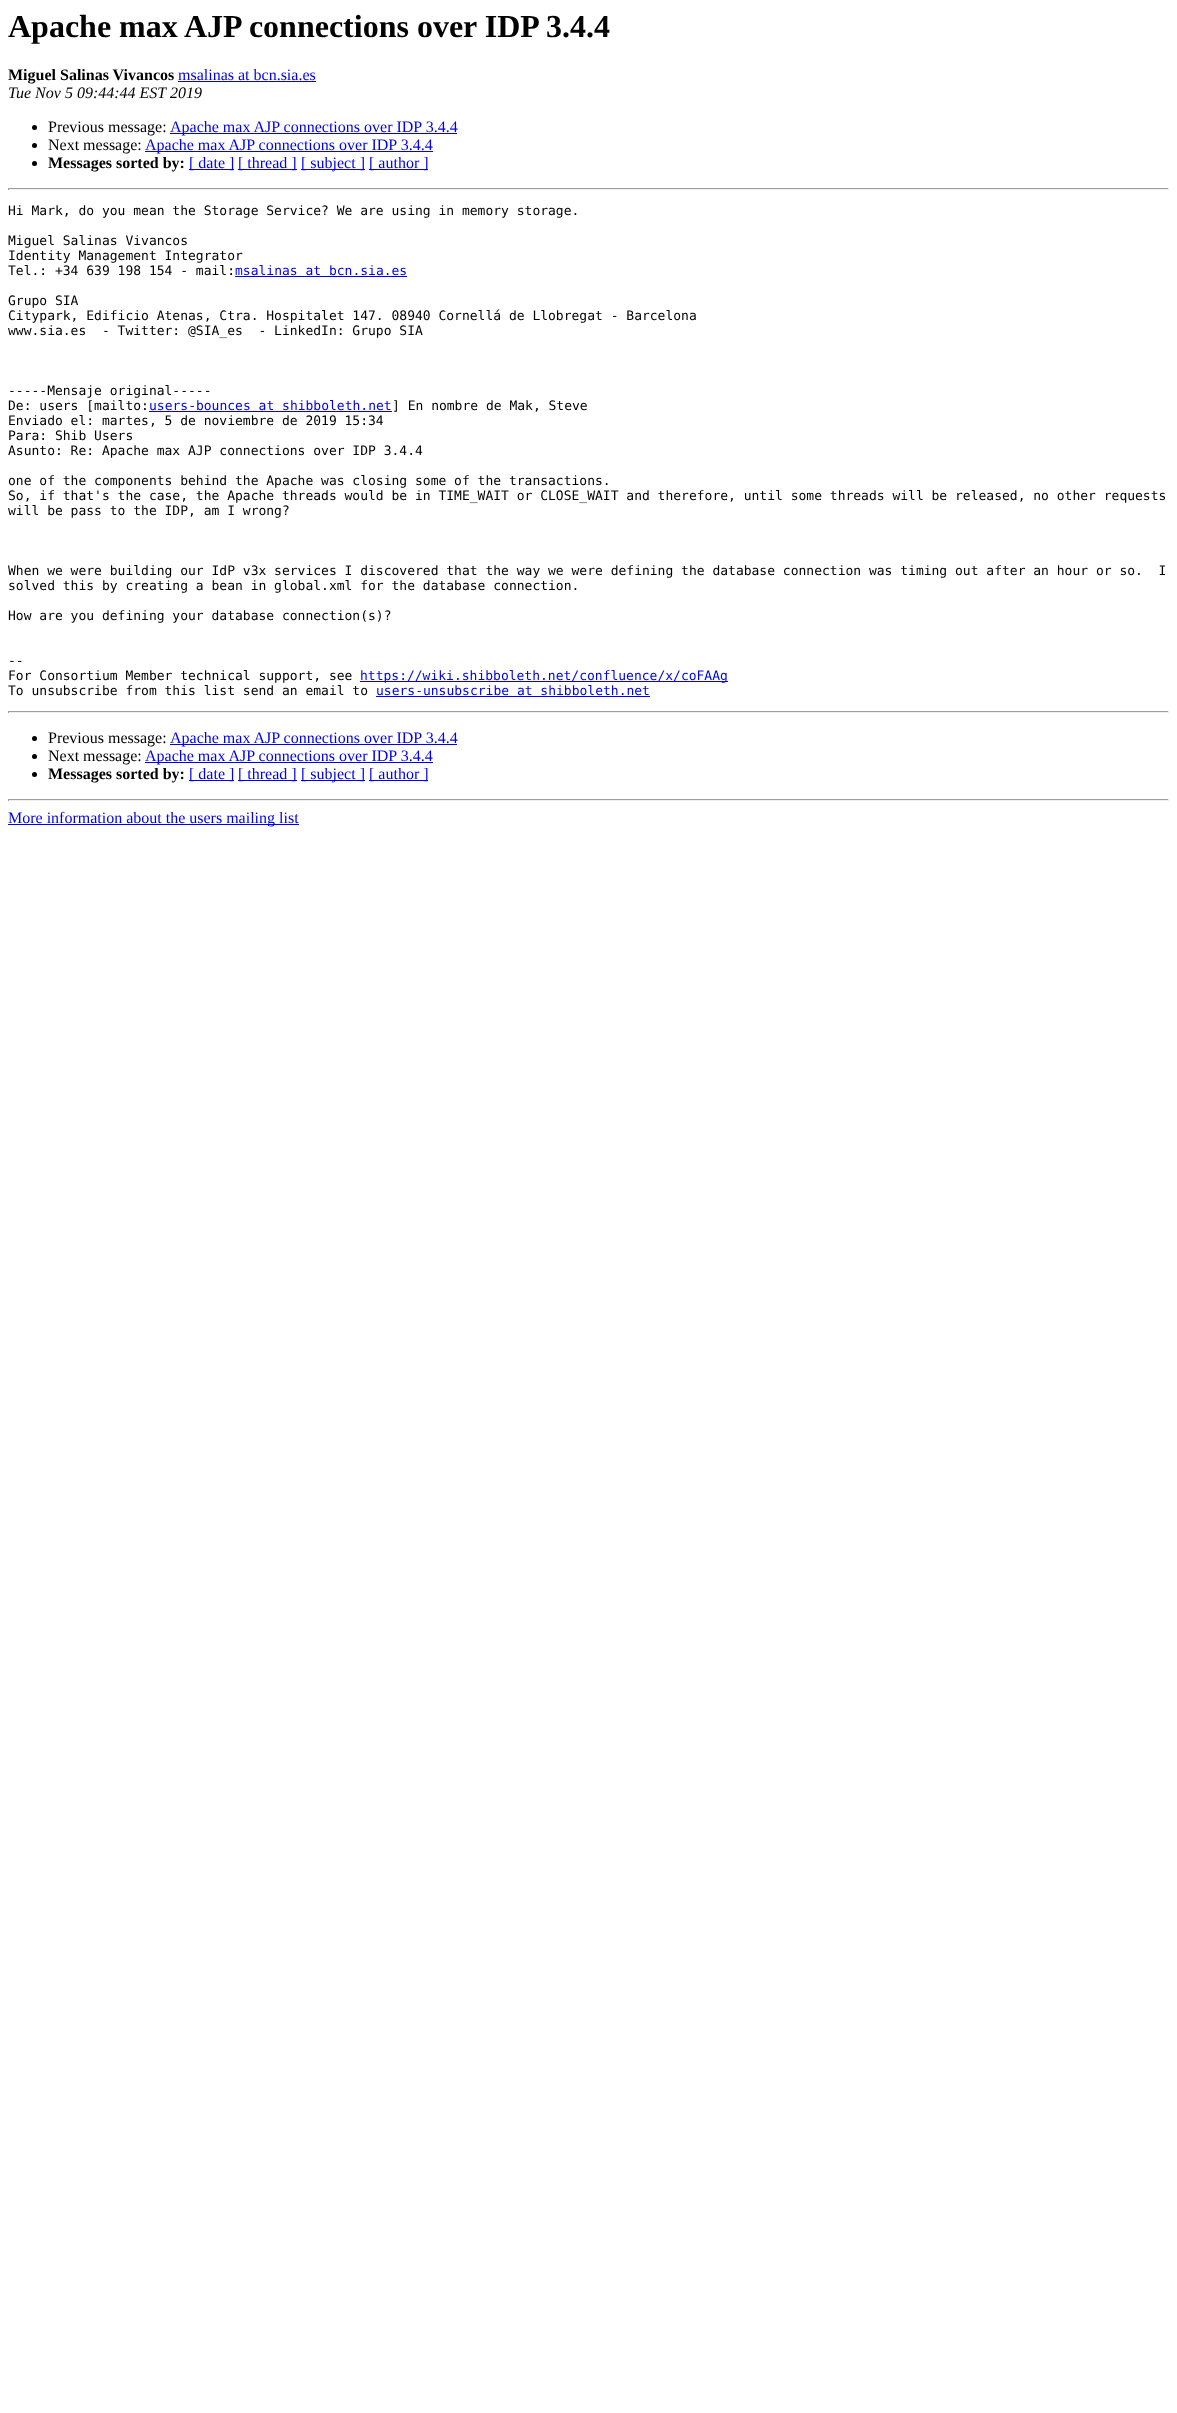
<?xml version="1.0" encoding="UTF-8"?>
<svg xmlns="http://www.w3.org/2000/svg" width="1177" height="2413">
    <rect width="100%" height="100%" fill="#FFFFFF"/>
    <text x="8" y="37" font-family="Liberation Serif" font-size="32" font-weight="700" fill="#000000">Apache max AJP connections over IDP 3.4.4</text>
    <text x="8" y="80" font-family="Liberation Serif" font-size="16" font-weight="700" fill="#000000">Miguel Salinas Vivancos</text>
    <text x="178" y="80" font-family="Liberation Serif" font-size="16" fill="#0000EE">msalinas at bcn.sia.es</text>
    <rect x="178" y="81" width="138" height="1" fill="#0000EE"/>
    <text x="8" y="98" font-family="Liberation Serif" font-size="16" font-style="italic" fill="#000000">Tue Nov 5 09:44:44 EST 2019</text>
    <circle cx="34.5" cy="127.5" r="2.5" fill="#000000"/>
    <text x="48" y="132" font-family="Liberation Serif" font-size="16" fill="#000000">Previous message:</text>
    <rect x="170" y="133" width="287" height="1" fill="#0000EE"/>
    <text x="170" y="132" font-family="Liberation Serif" font-size="16" fill="#0000EE">Apache max AJP connections over IDP 3.4.4</text>
    <circle cx="34.5" cy="145.5" r="2.5" fill="#000000"/>
    <text x="48" y="150" font-family="Liberation Serif" font-size="16" fill="#000000">Next message:</text>
    <rect x="145" y="151" width="288" height="1" fill="#0000EE"/>
    <text x="145" y="150" font-family="Liberation Serif" font-size="16" fill="#0000EE">Apache max AJP connections over IDP 3.4.4</text>
    <circle cx="34.5" cy="163.5" r="2.5" fill="#000000"/>
    <text x="48" y="168" font-family="Liberation Serif" font-size="16" font-weight="700" fill="#000000">Messages sorted by:</text>
    <rect x="189" y="169" width="45" height="1" fill="#0000EE"/>
    <text x="189" y="168" font-family="Liberation Serif" font-size="16" fill="#0000EE">[ date ]</text>
    <rect x="238" y="169" width="59" height="1" fill="#0000EE"/>
    <text x="238" y="168" font-family="Liberation Serif" font-size="16" fill="#0000EE">[ thread ]</text>
    <rect x="301" y="169" width="64" height="1" fill="#0000EE"/>
    <text x="301" y="168" font-family="Liberation Serif" font-size="16" fill="#0000EE">[ subject ]</text>
    <rect x="369" y="169" width="59" height="1" fill="#0000EE"/>
    <text x="369" y="168" font-family="Liberation Serif" font-size="16" fill="#0000EE">[ author ]</text>
    <rect x="8" y="188" width="1161" height="1" fill="#9F9F9F"/>
    <rect x="1168" y="188" width="1" height="2" fill="#EEEEEE"/>
    <rect x="8" y="189" width="1161" height="1" fill="#EEEEEE"/>
    <rect x="8" y="188" width="1" height="2" fill="#9F9F9F"/>
    <text x="8" y="215" font-family="DejaVu Sans Mono" font-size="13" fill="#000000">Hi Mark, do you mean the Storage Service? We are using in memory storage.</text>
    <text font-family="DejaVu Sans Mono" font-size="13" fill="#000000">
        <tspan x="8" y="245">Miguel Salinas Vivancos</tspan>
        <tspan x="8" y="260">Identity Management Integrator</tspan>
        <tspan x="8" y="275">Tel.: +34 639 198 154 - mail:</tspan>
    </text>
    <text x="235" y="275" font-family="DejaVu Sans Mono" font-size="13" fill="#0000EE">msalinas at bcn.sia.es</text>
    <rect x="235" y="276" width="172" height="1" fill="#0000EE"/>
    <text font-family="DejaVu Sans Mono" font-size="13" fill="#000000" xml:space="preserve"><tspan x="8" y="305">Grupo SIA</tspan><tspan x="8" y="320">Citypark, Edificio Atenas, Ctra. Hospitalet 147. 08940 Cornellá de Llobregat - Barcelona</tspan><tspan x="8" y="335">www.sia.es  - Twitter: @SIA_es  - LinkedIn: Grupo SIA</tspan></text>
    <text font-family="DejaVu Sans Mono" font-size="13" fill="#000000">
        <tspan x="8" y="395">-----Mensaje original-----</tspan>
        <tspan x="8" y="410">De: users [mailto:</tspan>
    </text>
    <text x="149" y="410" font-family="DejaVu Sans Mono" font-size="13" fill="#0000EE">users-bounces at shibboleth.net</text>
    <rect x="149" y="411" width="243" height="1" fill="#0000EE"/>
    <text x="392" y="410" font-family="DejaVu Sans Mono" font-size="13" fill="#000000">] En nombre de Mak, Steve</text>
    <text font-family="DejaVu Sans Mono" font-size="13" fill="#000000">
        <tspan x="8" y="425">Enviado el: martes, 5 de noviembre de 2019 15:34</tspan>
        <tspan x="8" y="440">Para: Shib Users</tspan>
        <tspan x="8" y="455">Asunto: Re: Apache max AJP connections over IDP 3.4.4</tspan>
    </text>
    <text font-family="DejaVu Sans Mono" font-size="13" fill="#000000">
        <tspan x="8" y="485">one of the components behind the Apache was closing some of the transactions.</tspan>
        <tspan x="8" y="500">So, if that's the case, the Apache threads would be in TIME_WAIT or CLOSE_WAIT and therefore, until some threads will be released, no other requests</tspan>
        <tspan x="8" y="515">will be pass to the IDP, am I wrong?</tspan>
    </text>
    <text font-family="DejaVu Sans Mono" font-size="13" fill="#000000" xml:space="preserve"><tspan x="8" y="575">When we were building our IdP v3x services I discovered that the way we were defining the database connection was timing out after an hour or so.  I</tspan><tspan x="8" y="590">solved this by creating a bean in global.xml for the database connection.</tspan></text>
    <text x="8" y="620" font-family="DejaVu Sans Mono" font-size="13" fill="#000000">How are you defining your database connection(s)?</text>
    <text font-family="DejaVu Sans Mono" font-size="13" fill="#000000">
        <tspan x="8" y="665">--</tspan>
        <tspan x="8" y="680">For Consortium Member technical support, see</tspan>
    </text>
    <rect x="360" y="681" width="368" height="1" fill="#0000EE"/>
    <text x="360" y="680" font-family="DejaVu Sans Mono" font-size="13" fill="#0000EE">https://wiki.shibboleth.net/confluence/x/coFAAg</text>
    <text x="8" y="695" font-family="DejaVu Sans Mono" font-size="13" fill="#000000">To unsubscribe from this list send an email to</text>
    <text x="376" y="695" font-family="DejaVu Sans Mono" font-size="13" fill="#0000EE">users-unsubscribe at shibboleth.net</text>
    <rect x="376" y="696" width="274" height="1" fill="#0000EE"/>
    <rect x="8" y="711" width="1161" height="1" fill="#9F9F9F"/>
    <rect x="1168" y="711" width="1" height="2" fill="#EEEEEE"/>
    <rect x="8" y="712" width="1161" height="1" fill="#EEEEEE"/>
    <rect x="8" y="711" width="1" height="2" fill="#9F9F9F"/>
    <circle cx="34.5" cy="738.5" r="2.5" fill="#000000"/>
    <text x="48" y="743" font-family="Liberation Serif" font-size="16" fill="#000000">Previous message:</text>
    <rect x="170" y="744" width="287" height="1" fill="#0000EE"/>
    <text x="170" y="743" font-family="Liberation Serif" font-size="16" fill="#0000EE">Apache max AJP connections over IDP 3.4.4</text>
    <circle cx="34.5" cy="756.5" r="2.5" fill="#000000"/>
    <text x="48" y="761" font-family="Liberation Serif" font-size="16" fill="#000000">Next message:</text>
    <rect x="145" y="762" width="288" height="1" fill="#0000EE"/>
    <text x="145" y="761" font-family="Liberation Serif" font-size="16" fill="#0000EE">Apache max AJP connections over IDP 3.4.4</text>
    <circle cx="34.5" cy="774.5" r="2.5" fill="#000000"/>
    <text x="48" y="779" font-family="Liberation Serif" font-size="16" font-weight="700" fill="#000000">Messages sorted by:</text>
    <rect x="189" y="780" width="45" height="1" fill="#0000EE"/>
    <text x="189" y="779" font-family="Liberation Serif" font-size="16" fill="#0000EE">[ date ]</text>
    <rect x="238" y="780" width="59" height="1" fill="#0000EE"/>
    <text x="238" y="779" font-family="Liberation Serif" font-size="16" fill="#0000EE">[ thread ]</text>
    <rect x="301" y="780" width="64" height="1" fill="#0000EE"/>
    <text x="301" y="779" font-family="Liberation Serif" font-size="16" fill="#0000EE">[ subject ]</text>
    <rect x="369" y="780" width="59" height="1" fill="#0000EE"/>
    <text x="369" y="779" font-family="Liberation Serif" font-size="16" fill="#0000EE">[ author ]</text>
    <rect x="8" y="799" width="1161" height="1" fill="#9F9F9F"/>
    <rect x="1168" y="799" width="1" height="2" fill="#EEEEEE"/>
    <rect x="8" y="800" width="1161" height="1" fill="#EEEEEE"/>
    <rect x="8" y="799" width="1" height="2" fill="#9F9F9F"/>
    <rect x="8" y="824" width="291" height="1" fill="#0000EE"/>
    <text x="8" y="823" font-family="Liberation Serif" font-size="16" fill="#0000EE">More information about the users mailing list</text>
</svg>
